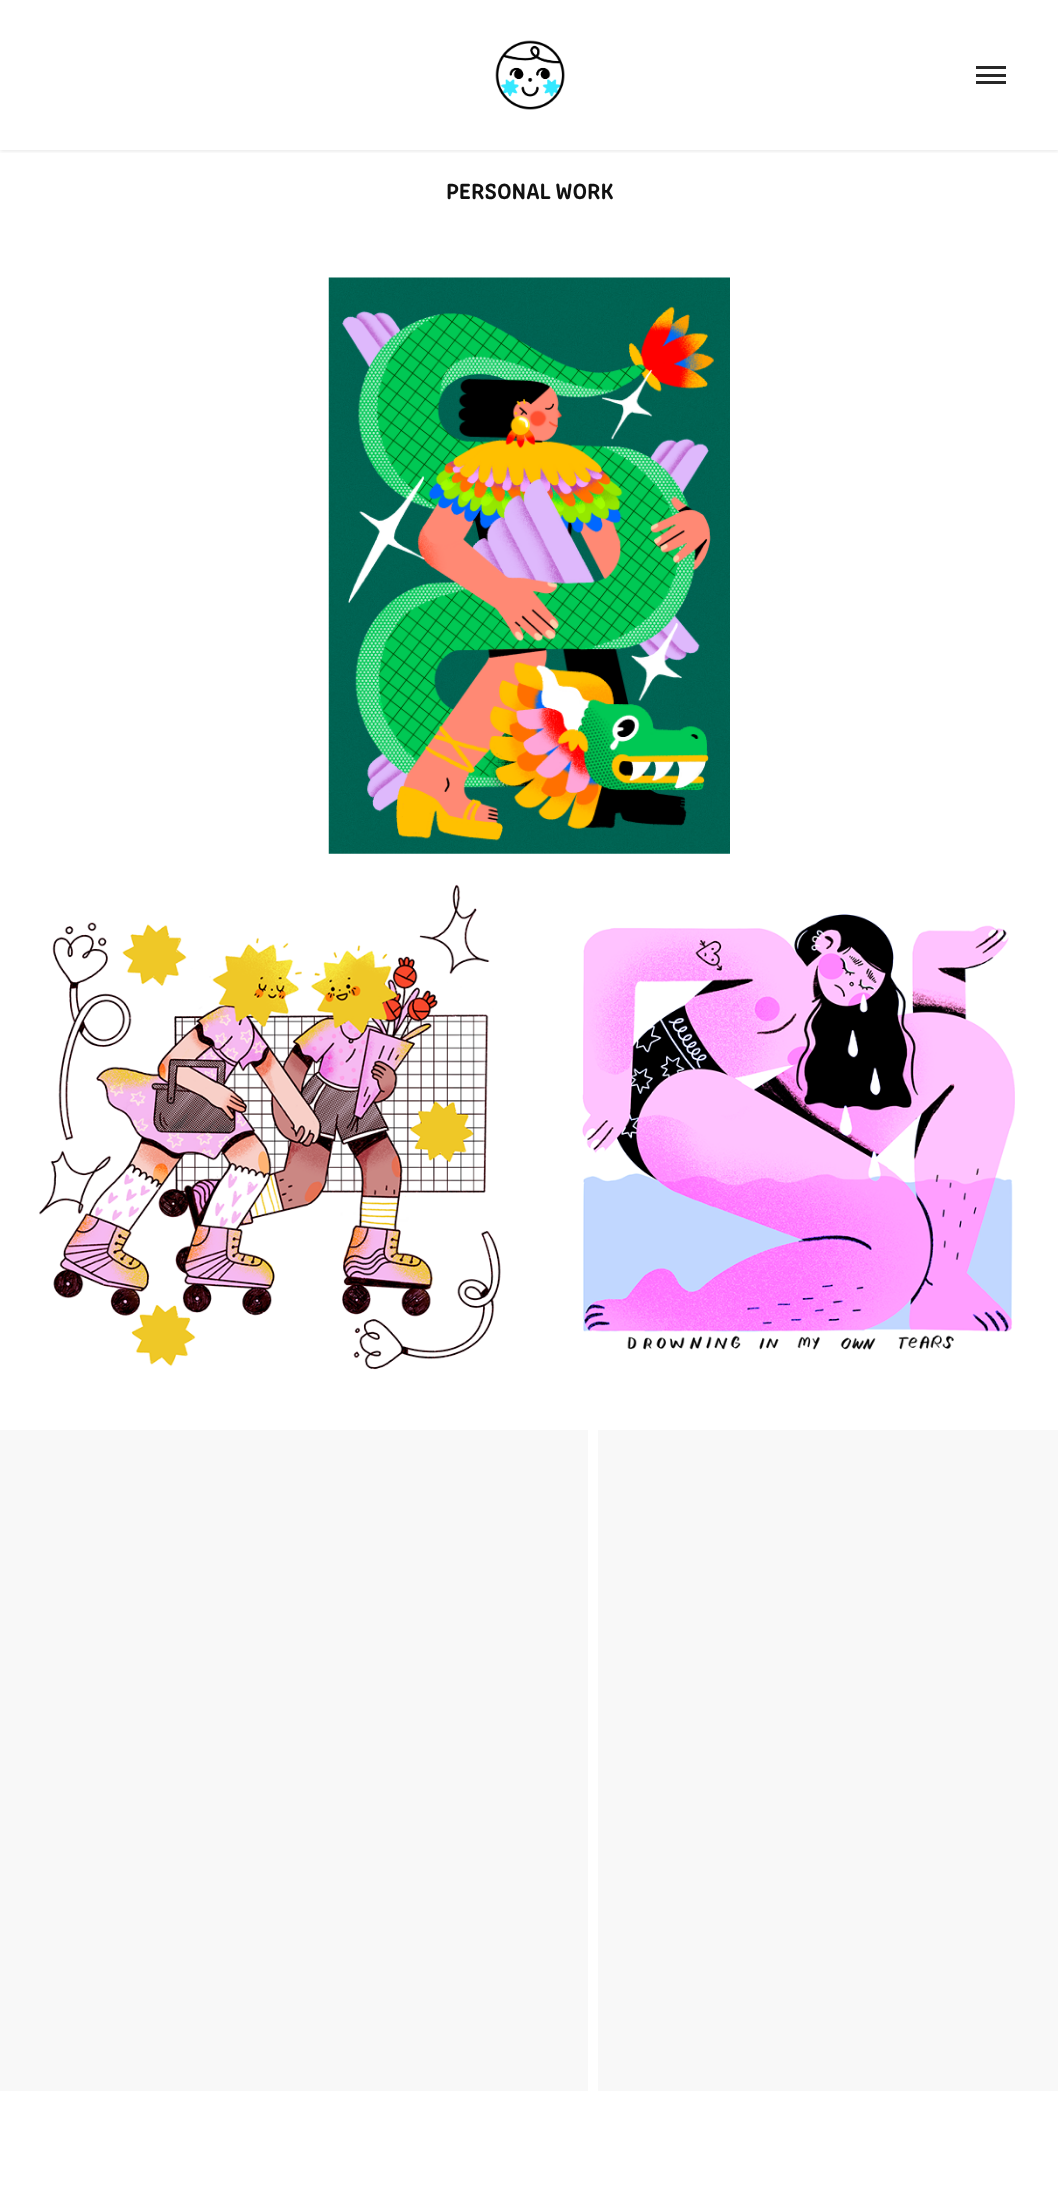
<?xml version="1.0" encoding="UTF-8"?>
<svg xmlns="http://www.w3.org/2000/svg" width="1058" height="2187">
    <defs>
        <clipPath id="clip1"><rect x="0" y="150" width="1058" height="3"/></clipPath>
        <filter id="blur1" x="-50%" y="-200%" width="200%" height="500%"><feGaussianBlur stdDeviation="2"/></filter>
    </defs>
    <rect width="100%" height="100%" fill="#FFFFFF"/>
    <g clip-path="url(#clip1)">
        <rect x="0" y="1" width="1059" height="150" fill="#000000" fill-opacity="0.1" filter="url(#blur1)"/>
    </g>
    <image x="495" y="40" width="70" height="70" href="img_01.png"/>
    <rect x="976" y="66" width="30" height="3" fill="#282828"/>
    <rect x="976" y="74" width="30" height="3" fill="#282828"/>
    <rect x="976" y="81" width="30" height="3" fill="#282828"/>
    <text x="446" y="199" font-family="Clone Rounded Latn" font-size="22.5" font-weight="700" fill="#111111">PERSONAL WORK</text>
    <image x="328" y="277" width="402" height="577" href="img_02.png"/>
    <image x="39" y="884" width="462" height="486" href="img_03.png"/>
    <image x="582" y="914" width="433" height="436" href="img_04.png"/>
    <rect x="0" y="1430" width="588" height="661" fill="#F8F8F8"/>
    <rect x="598" y="1430" width="460" height="661" fill="#F8F8F8"/>
</svg>
